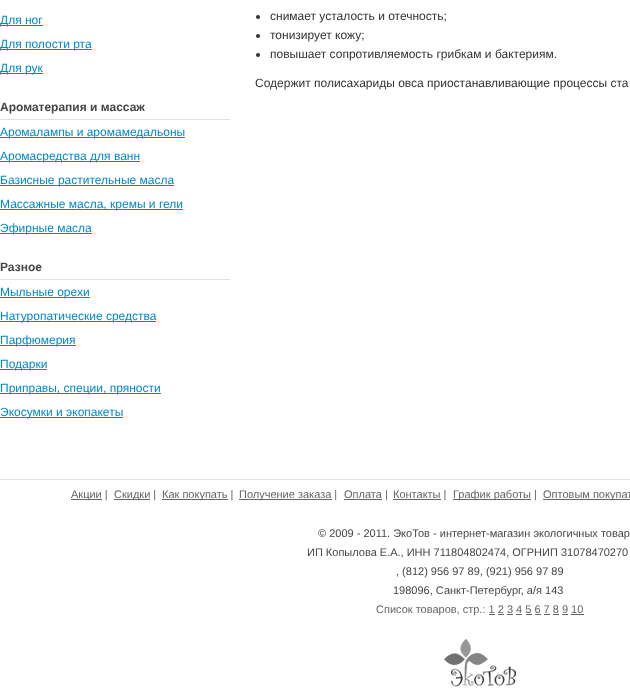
<?xml version="1.0" encoding="UTF-8"?>
<svg xmlns="http://www.w3.org/2000/svg" width="630" height="692">
    <rect width="100%" height="100%" fill="#FFFFFF"/>
    <rect x="0" y="25" width="43" height="1" fill="#0088CC"/>
    <text x="0" y="24" font-family="Liberation Sans" font-size="12" fill="#0088CC">Для ног</text>
    <rect x="0" y="49" width="92" height="1" fill="#0088CC"/>
    <text x="0" y="48" font-family="Liberation Sans" font-size="12" fill="#0088CC">Для полости рта</text>
    <rect x="0" y="73" width="43" height="1" fill="#0088CC"/>
    <text x="0" y="72" font-family="Liberation Sans" font-size="12" fill="#0088CC">Для рук</text>
    <rect x="0" y="119" width="230" height="1" fill="#DFDFDF"/>
    <text x="0" y="111" font-family="Liberation Sans" font-size="12" font-weight="700" fill="#454545">Ароматерапия и массаж</text>
    <rect x="0" y="137" width="185" height="1" fill="#0088CC"/>
    <text x="0" y="136" font-family="Liberation Sans" font-size="12" fill="#0088CC">Аромалампы и аромамедальоны</text>
    <rect x="0" y="161" width="140" height="1" fill="#0088CC"/>
    <text x="0" y="160" font-family="Liberation Sans" font-size="12" fill="#0088CC">Аромасредства для ванн</text>
    <rect x="0" y="185" width="174" height="1" fill="#0088CC"/>
    <text x="0" y="184" font-family="Liberation Sans" font-size="12" fill="#0088CC">Базисные растительные масла</text>
    <rect x="0" y="209" width="183" height="1" fill="#0088CC"/>
    <text x="0" y="208" font-family="Liberation Sans" font-size="12" fill="#0088CC">Массажные масла, кремы и гели</text>
    <rect x="0" y="233" width="92" height="1" fill="#0088CC"/>
    <text x="0" y="232" font-family="Liberation Sans" font-size="12" fill="#0088CC">Эфирные масла</text>
    <rect x="0" y="279" width="230" height="1" fill="#DFDFDF"/>
    <text x="0" y="271" font-family="Liberation Sans" font-size="12" font-weight="700" fill="#454545">Разное</text>
    <rect x="0" y="297" width="90" height="1" fill="#0088CC"/>
    <text x="0" y="296" font-family="Liberation Sans" font-size="12" fill="#0088CC">Мыльные орехи</text>
    <rect x="0" y="321" width="156" height="1" fill="#0088CC"/>
    <text x="0" y="320" font-family="Liberation Sans" font-size="12" fill="#0088CC">Натуропатические средства</text>
    <rect x="0" y="345" width="76" height="1" fill="#0088CC"/>
    <text x="0" y="344" font-family="Liberation Sans" font-size="12" fill="#0088CC">Парфюмерия</text>
    <rect x="0" y="369" width="47" height="1" fill="#0088CC"/>
    <text x="0" y="368" font-family="Liberation Sans" font-size="12" fill="#0088CC">Подарки</text>
    <rect x="0" y="393" width="161" height="1" fill="#0088CC"/>
    <text x="0" y="392" font-family="Liberation Sans" font-size="12" fill="#0088CC">Приправы, специи, пряности</text>
    <rect x="0" y="417" width="123" height="1" fill="#0088CC"/>
    <text x="0" y="416" font-family="Liberation Sans" font-size="12" fill="#0088CC">Экосумки и экопакеты</text>
    <circle cx="258" cy="17" r="2" fill="#323232"/>
    <text x="270" y="20" font-family="Liberation Sans" font-size="12" fill="#323232">снимает усталость и отечность;</text>
    <circle cx="258" cy="36" r="2" fill="#323232"/>
    <text x="270" y="39" font-family="Liberation Sans" font-size="12" fill="#323232">тонизирует кожу;</text>
    <circle cx="258" cy="55" r="2" fill="#323232"/>
    <text x="270" y="58" font-family="Liberation Sans" font-size="12" fill="#323232">повышает сопротивляемость грибкам и бактериям.</text>
    <text x="255" y="87" font-family="Liberation Sans" font-size="12" fill="#323232">Содержит полисахариды овса приостанавливающие процессы ста</text>
    <image x="444" y="639" width="72" height="48" href="img_01.png"/>
    <rect x="0" y="479" width="630" height="1" fill="#DFDFDF"/>
    <rect x="71" y="499" width="31" height="1" fill="#646464"/>
    <text x="71" y="498" font-family="Liberation Sans" font-size="11" fill="#646464">Акции |</text>
    <rect x="114" y="499" width="36" height="1" fill="#646464"/>
    <text x="114" y="498" font-family="Liberation Sans" font-size="11" fill="#646464">Скидки |</text>
    <rect x="162" y="499" width="66" height="1" fill="#646464"/>
    <text x="162" y="498" font-family="Liberation Sans" font-size="11" fill="#646464">Как покупать |</text>
    <rect x="239" y="499" width="93" height="1" fill="#646464"/>
    <text x="239" y="498" font-family="Liberation Sans" font-size="11" fill="#646464">Получение заказа |</text>
    <rect x="344" y="499" width="38" height="1" fill="#646464"/>
    <text x="344" y="498" font-family="Liberation Sans" font-size="11" fill="#646464">Оплата |</text>
    <rect x="393" y="499" width="48" height="1" fill="#646464"/>
    <text x="393" y="498" font-family="Liberation Sans" font-size="11" fill="#646464">Контакты |</text>
    <rect x="453" y="499" width="78" height="1" fill="#646464"/>
    <text x="453" y="498" font-family="Liberation Sans" font-size="11" fill="#646464">График работы |</text>
    <rect x="543" y="499" width="87" height="1" fill="#646464"/>
    <text x="543" y="498" font-family="Liberation Sans" font-size="11" fill="#646464">Оптовым покупат</text>
    <text x="318" y="537" font-family="Liberation Sans" font-size="11" fill="#454545">© 2009 - 2011. ЭкоТов - интернет-магазин экологичных товар</text>
    <text x="307" y="556" font-family="Liberation Sans" font-size="11" fill="#454545">ИП Копылова Е.А., ИНН 711804802474, ОГРНИП 31078470270</text>
    <text x="396" y="575" font-family="Liberation Sans" font-size="11" fill="#454545">, (812) 956 97 89, (921) 956 97 89</text>
    <text x="393" y="594" font-family="Liberation Sans" font-size="11" fill="#454545">198096, Санкт-Петербург, а/я 143</text>
    <text x="376" y="613" font-family="Liberation Sans" font-size="11" fill="#646464">Список товаров, стр.: 1 2 3 4 5 6 7 8 9 10</text>
    <rect x="489" y="614" width="6" height="1" fill="#646464"/>
    <rect x="498" y="614" width="6" height="1" fill="#646464"/>
    <rect x="507" y="614" width="6" height="1" fill="#646464"/>
    <rect x="516" y="614" width="6" height="1" fill="#646464"/>
    <rect x="526" y="614" width="6" height="1" fill="#646464"/>
    <rect x="535" y="614" width="6" height="1" fill="#646464"/>
    <rect x="544" y="614" width="6" height="1" fill="#646464"/>
    <rect x="553" y="614" width="6" height="1" fill="#646464"/>
    <rect x="562" y="614" width="6" height="1" fill="#646464"/>
    <rect x="571" y="614" width="13" height="1" fill="#646464"/>
</svg>
